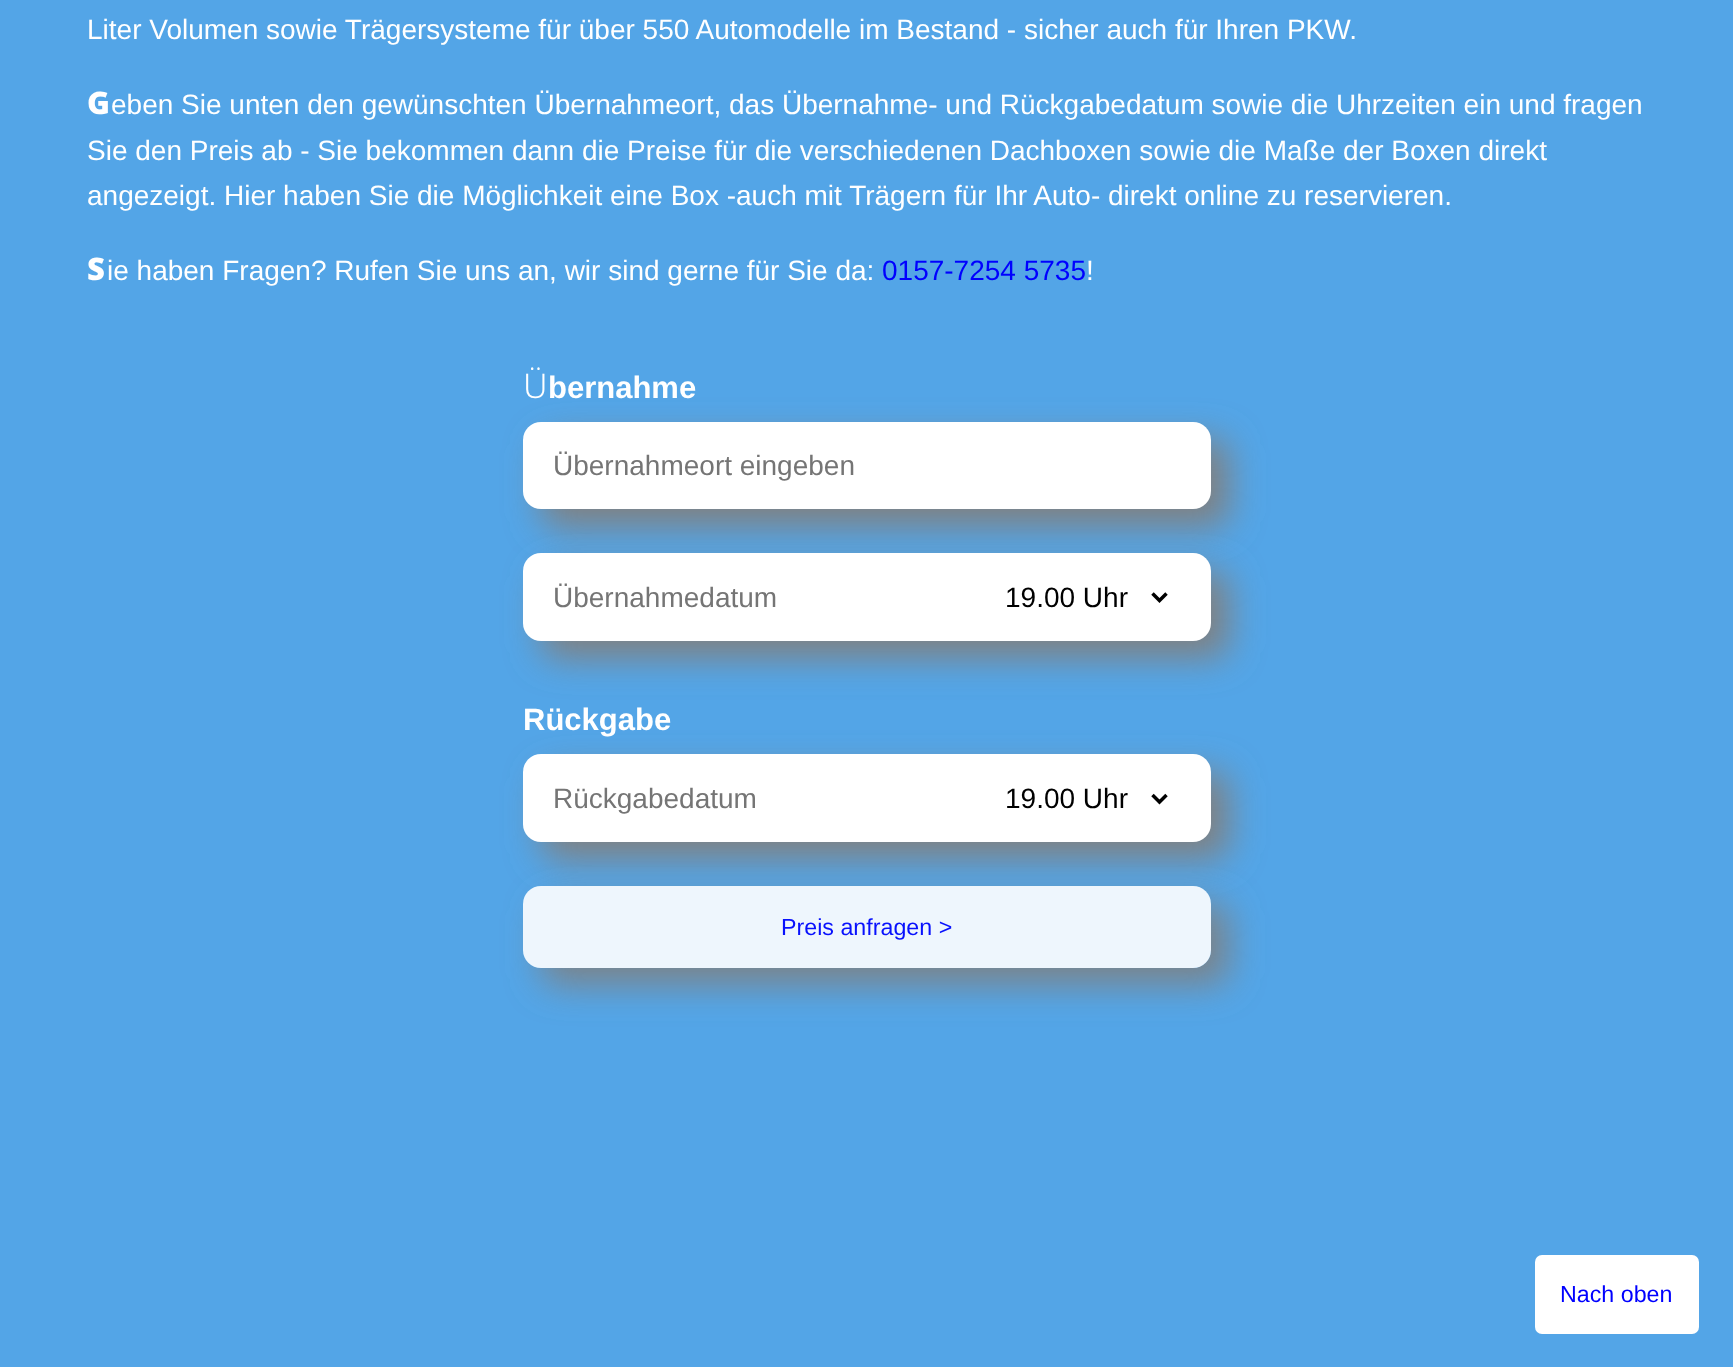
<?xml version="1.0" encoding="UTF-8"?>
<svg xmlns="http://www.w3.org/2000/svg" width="1733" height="1367">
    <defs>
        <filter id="blur1" x="-50%" y="-200%" width="200%" height="500%"><feGaussianBlur stdDeviation="17.5"/></filter>
        <clipPath id="clip1"><path d="M 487 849 H 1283 V 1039 H 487 Z M 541 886 H 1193 C 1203 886 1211 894 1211 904 V 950 C 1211 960 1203 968 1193 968 H 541 C 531 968 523 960 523 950 V 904 C 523 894 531 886 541 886 Z" clip-rule="evenodd"/></clipPath>
    </defs>
    <rect width="100%" height="100%" fill="#53A5E7"/>
    <text x="87" y="39" font-family="Liberation Sans" font-size="28" fill="#FFFFFF">Liter Volumen sowie Trägersysteme für über 550 Automodelle im Bestand - sicher auch für Ihren PKW.</text>
    <text x="87" y="114" font-family="Noto Sans" font-size="31" font-weight="900" fill="#FFFFFF">G</text>
    <text x="111" y="114" font-family="Liberation Sans" font-size="28" fill="#FFFFFF">eben Sie unten den gewünschten Übernahmeort, das Übernahme- und Rückgabedatum sowie die Uhrzeiten ein und fragen</text>
    <text font-family="Liberation Sans" font-size="28" fill="#FFFFFF">
        <tspan x="87" y="160">Sie den Preis ab - Sie bekommen dann die Preise für die verschiedenen Dachboxen sowie die Maße der Boxen direkt</tspan>
        <tspan x="87" y="205">angezeigt. Hier haben Sie die Möglichkeit eine Box -auch mit Trägern für Ihr Auto- direkt online zu reservieren.</tspan>
    </text>
    <text x="87" y="280" font-family="Noto Sans" font-size="31" font-weight="900" fill="#FFFFFF">S</text>
    <text x="107" y="280" font-family="Liberation Sans" font-size="28" fill="#FFFFFF">ie haben Fragen? Rufen Sie uns an, wir sind gerne für Sie da:</text>
    <text x="882" y="280" font-family="Liberation Sans" font-size="28" fill="#0000FF">0157-7254 5735</text>
    <text x="1086" y="280" font-family="Liberation Sans" font-size="28" fill="#FFFFFF">!</text>
    <rect x="541" y="439" width="688" height="88" rx="18" fill="#808080" filter="url(#blur1)"/>
    <text x="523" y="398" font-family="Noto Sans" font-size="34" font-weight="300" fill="#FFFFFF">Ü</text>
    <text x="548" y="398" font-family="Liberation Sans" font-size="31" font-weight="700" fill="#FFFFFF">bernahme</text>
    <rect x="523" y="422" width="688" height="87" rx="18" fill="#FFFFFF"/>
    <text x="553" y="475" font-family="Liberation Sans" font-size="28" fill="#757575">Übernahmeort eingeben</text>
    <rect x="541" y="571" width="688" height="87" rx="18" fill="#808080" filter="url(#blur1)"/>
    <rect x="523" y="553" width="688" height="88" rx="18" fill="#FFFFFF"/>
    <text x="553" y="607" font-family="Liberation Sans" font-size="28" fill="#757575">Übernahmedatum</text>
    <path d="M 1152.5 593.5 L 1159.5 600.5 L 1166.5 593.5" fill="none" stroke="#000000" stroke-width="3.5"/>
    <text x="1005" y="607" font-family="Liberation Sans" font-size="28" fill="#000000">19.00 Uhr</text>
    <rect x="541" y="772" width="688" height="87" rx="18" fill="#808080" filter="url(#blur1)"/>
    <text x="523" y="730" font-family="Liberation Sans" font-size="31" font-weight="700" fill="#FFFFFF">Rückgabe</text>
    <rect x="523" y="754" width="688" height="88" rx="18" fill="#FFFFFF"/>
    <text x="553" y="808" font-family="Liberation Sans" font-size="28" fill="#757575">Rückgabedatum</text>
    <path d="M 1152.5 795 L 1159.5 802 L 1166.5 795" fill="none" stroke="#000000" stroke-width="3.5"/>
    <text x="1005" y="808" font-family="Liberation Sans" font-size="28" fill="#000000">19.00 Uhr</text>
    <g clip-path="url(#clip1)">
        <rect x="541" y="903" width="688" height="82" rx="18" fill="#808080" fill-opacity="0.9" filter="url(#blur1)"/>
    </g>
    <rect x="523" y="886" width="688" height="82" rx="18" fill="#FFFFFF" fill-opacity="0.9"/>
    <text x="781" y="935" font-family="Liberation Sans" font-size="23.25" fill="#0811FD">Preis anfragen &gt;</text>
    <rect x="1535" y="1255" width="164" height="79" rx="7" fill="#FFFFFF"/>
    <text x="1560" y="1302" font-family="Liberation Sans" font-size="23.25" fill="#0000FF">Nach oben</text>
</svg>
